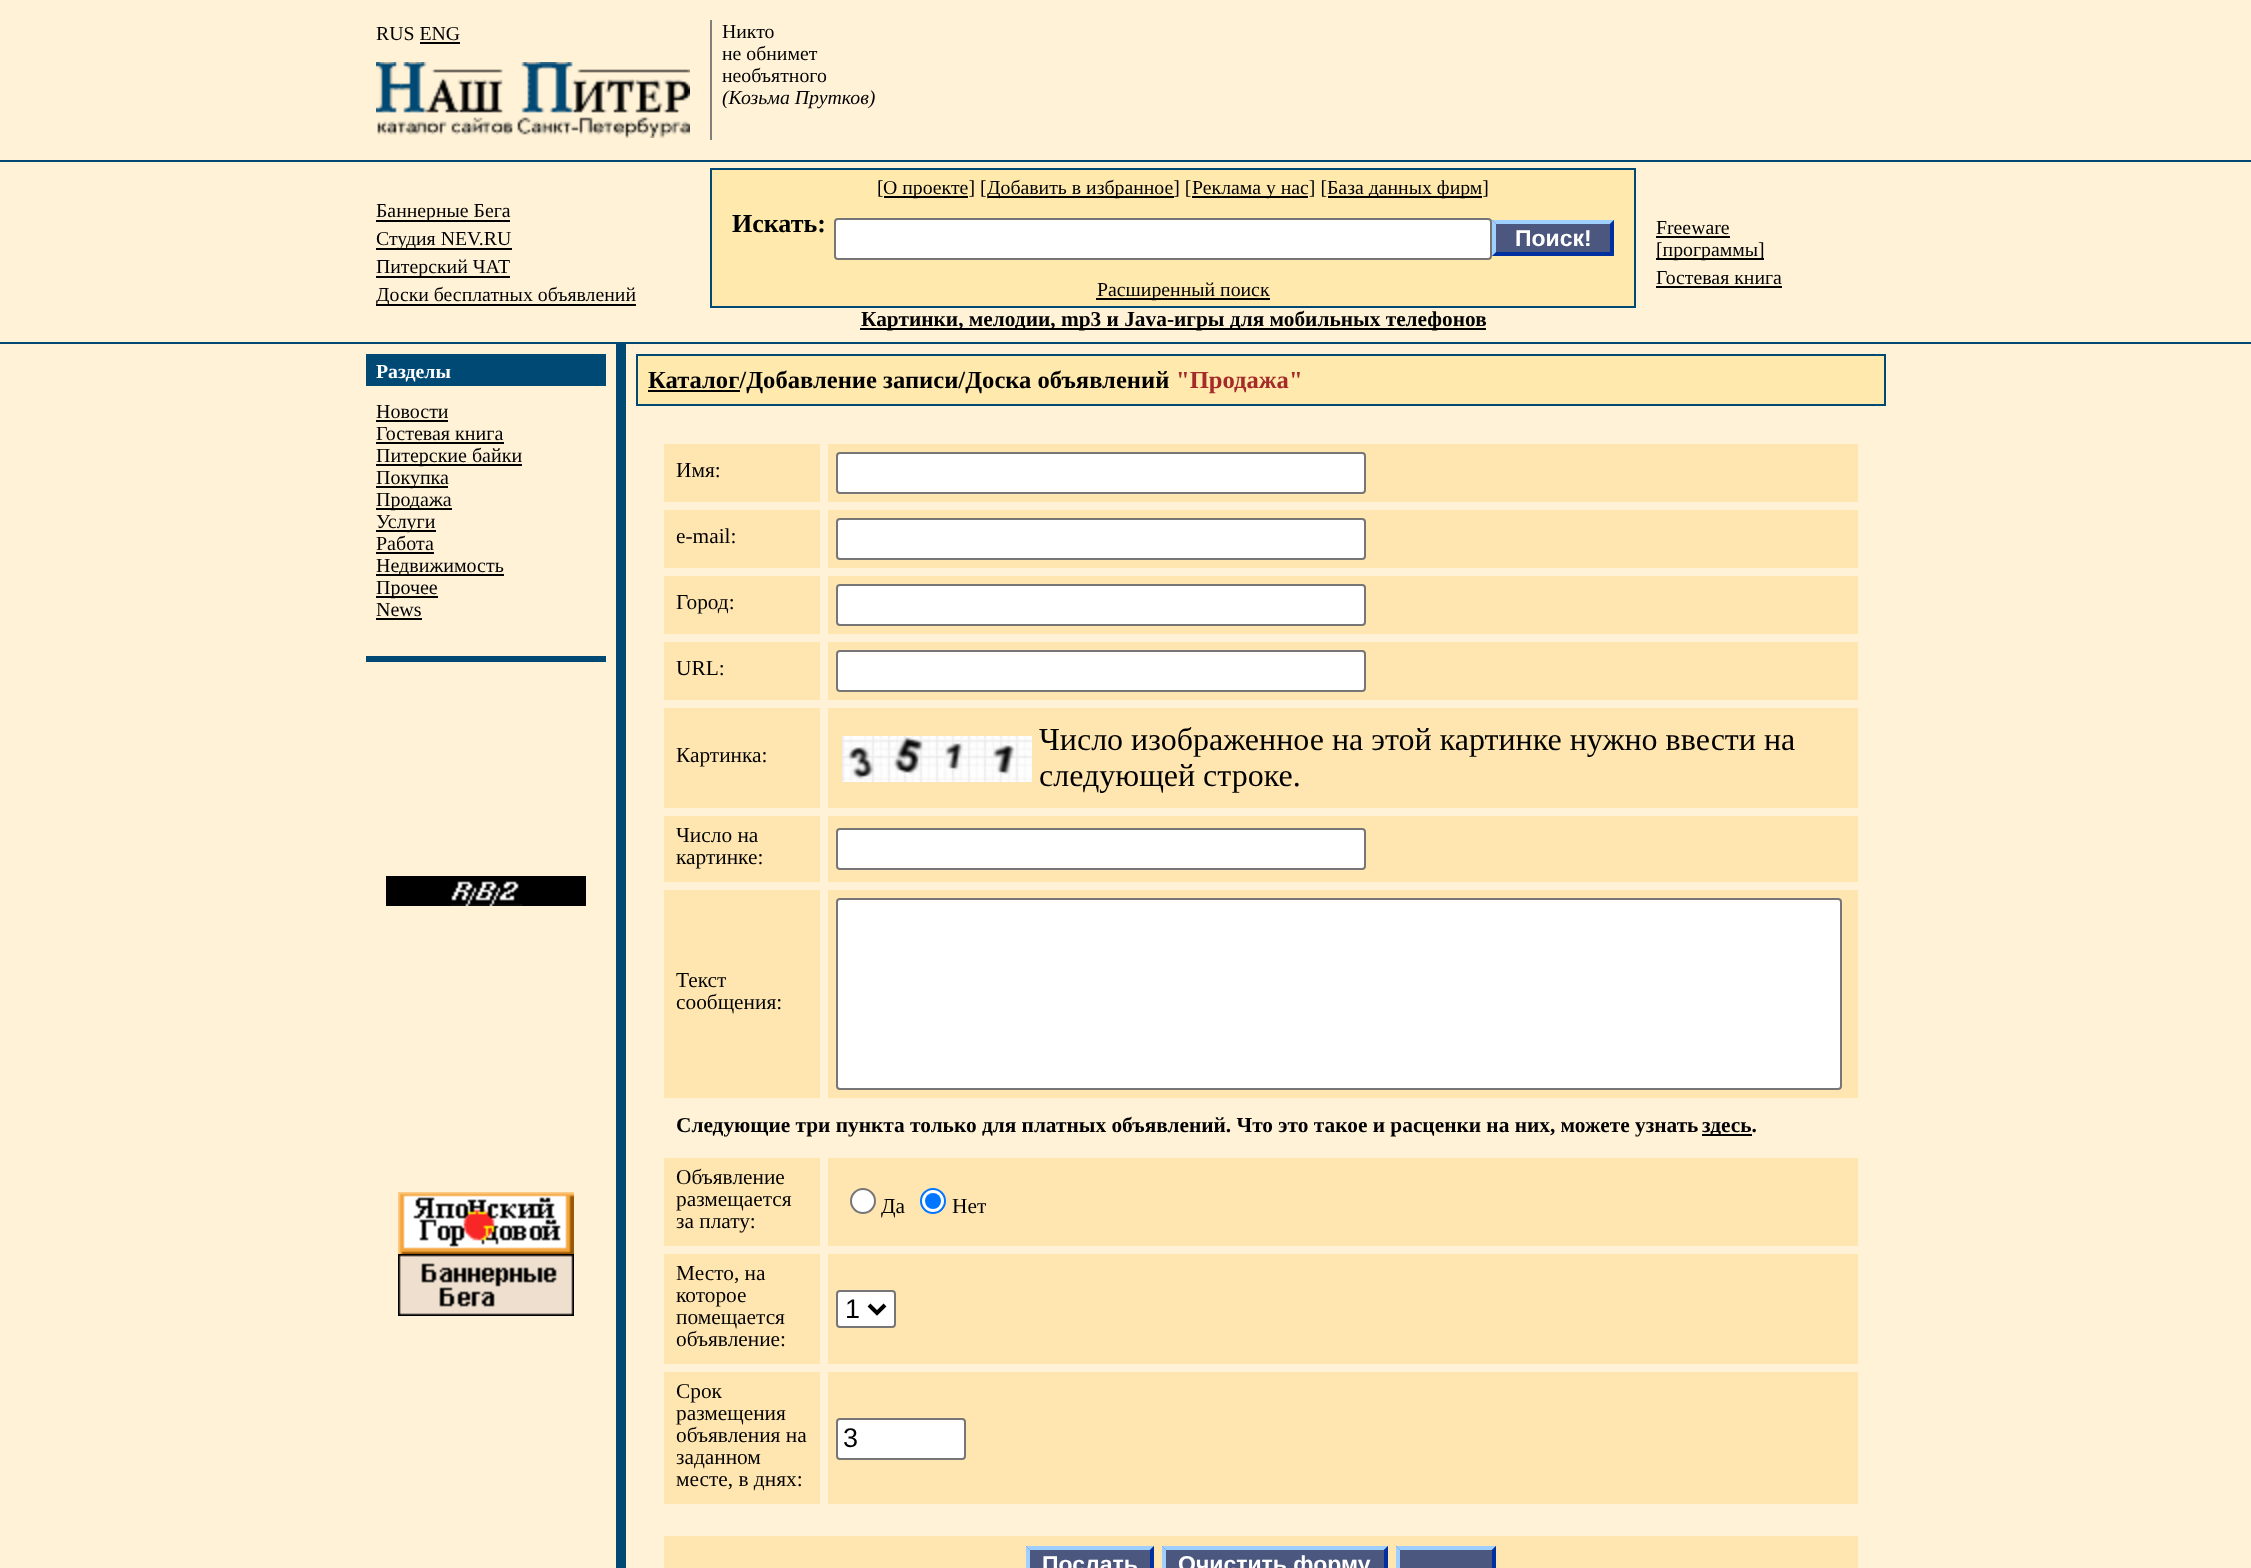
<?xml version="1.0" encoding="UTF-8"?>
<svg xmlns="http://www.w3.org/2000/svg" width="2251" height="1568">
    <rect width="100%" height="100%" fill="#FFF2D7"/>
    <text x="376" y="40" font-family="Liberation Serif" font-size="19.8" fill="#000000">RUS ENG</text>
    <rect x="420" y="42" width="40" height="2" fill="#000000"/>
    <image x="376" y="62" width="314" height="76" href="img_01.png"/>
    <rect x="710" y="20" width="2" height="120" fill="#808080"/>
    <text font-family="Liberation Serif" font-size="19.8" fill="#000000">
        <tspan x="722" y="38">Никто</tspan>
        <tspan x="722" y="60">не обнимет</tspan>
        <tspan x="722" y="82">необъятного</tspan>
    </text>
    <text x="722" y="104" font-family="Liberation Serif" font-size="19.8" font-style="italic" fill="#000000">(Козьма Прутков)</text>
    <rect x="0" y="160" width="2251" height="2" fill="#004975"/>
    <rect x="376" y="220" width="134" height="2" fill="#000000"/>
    <text x="376" y="217" font-family="Liberation Serif" font-size="19.8" fill="#000000">Баннерные Бега</text>
    <rect x="376" y="248" width="136" height="2" fill="#000000"/>
    <text x="376" y="245" font-family="Liberation Serif" font-size="19.8" fill="#000000">Студия NEV.RU</text>
    <rect x="376" y="276" width="134" height="2" fill="#000000"/>
    <text x="376" y="273" font-family="Liberation Serif" font-size="19.8" fill="#000000">Питерский ЧАТ</text>
    <rect x="376" y="304" width="260" height="2" fill="#000000"/>
    <text x="376" y="301" font-family="Liberation Serif" font-size="19.8" fill="#000000">Доски бесплатных объявлений</text>
    <rect x="710" y="168" width="926" height="140" fill="#004975"/>
    <rect x="712" y="170" width="922" height="136" fill="#FFE9AC"/>
    <text x="877" y="194" font-family="Liberation Serif" font-size="19.8" fill="#000000">[</text>
    <rect x="884" y="196" width="84" height="2" fill="#000000"/>
    <text x="883" y="194" font-family="Liberation Serif" font-size="19.8" fill="#000000">О проекте] [</text>
    <rect x="988" y="196" width="186" height="2" fill="#000000"/>
    <text x="987" y="194" font-family="Liberation Serif" font-size="19.8" fill="#000000">Добавить в избранное] [</text>
    <rect x="1192" y="196" width="116" height="2" fill="#000000"/>
    <text x="1192" y="194" font-family="Liberation Serif" font-size="19.8" fill="#000000">Реклама у нас] [</text>
    <rect x="1328" y="196" width="154" height="2" fill="#000000"/>
    <text x="1327" y="194" font-family="Liberation Serif" font-size="19.8" fill="#000000">База данных фирм]</text>
    <text x="732" y="232" font-family="Liberation Serif" font-size="26" font-weight="700" fill="#000000">Искать:</text>
    <rect x="835" y="219" width="656" height="40" rx="3" fill="#FFFFFF" stroke="#767676" stroke-width="2"/>
    <rect x="1492" y="220" width="122" height="36" fill="#4B577E"/>
    <path d="M 1492 220 H 1614 L 1610 224 H 1496 Z" fill="#9FCFFF"/>
    <path d="M 1614 220 V 256 L 1610 252 V 224 Z" fill="#002F9F"/>
    <path d="M 1614 256 H 1492 L 1496 252 H 1610 Z" fill="#002F9F"/>
    <path d="M 1492 256 V 220 L 1496 224 V 252 Z" fill="#9FCFFF"/>
    <text x="1515" y="246" font-family="Liberation Sans" font-size="23" font-weight="700" fill="#FFFFFF">Поиск!</text>
    <rect x="1096" y="298" width="174" height="2" fill="#000000"/>
    <text x="1097" y="296" font-family="Liberation Serif" font-size="19.8" fill="#000000">Расширенный поиск</text>
    <rect x="860" y="328" width="626" height="2" fill="#000000"/>
    <text x="861" y="326" font-family="Liberation Serif" font-size="21.35" font-weight="700" fill="#000000">Картинки, мелодии, mp3 и Java-игры для мобильных телефонов</text>
    <text x="1656" y="234" font-family="Liberation Serif" font-size="19.8" fill="#000000">Freeware</text>
    <rect x="1656" y="236" width="74" height="2" fill="#000000"/>
    <rect x="1656" y="258" width="108" height="2" fill="#000000"/>
    <text font-family="Liberation Serif" font-size="19.8" fill="#000000">
        <tspan x="1656" y="256">[программы]</tspan>
        <tspan x="1656" y="284">Гостевая книга</tspan>
    </text>
    <rect x="1656" y="286" width="126" height="2" fill="#000000"/>
    <rect x="0" y="342" width="2251" height="2" fill="#004975"/>
    <rect x="366" y="354" width="240" height="32" fill="#004975"/>
    <text x="376" y="378" font-family="Liberation Serif" font-size="19.8" font-weight="700" fill="#FFFFFF">Разделы</text>
    <text x="376" y="418" font-family="Liberation Serif" font-size="20" fill="#000000">Новости</text>
    <rect x="376" y="420" width="72" height="2" fill="#000000"/>
    <text x="376" y="440" font-family="Liberation Serif" font-size="20" fill="#000000">Гостевая книга</text>
    <rect x="376" y="442" width="128" height="2" fill="#000000"/>
    <rect x="376" y="464" width="146" height="2" fill="#000000"/>
    <text x="376" y="462" font-family="Liberation Serif" font-size="20" fill="#000000">Питерские байки</text>
    <rect x="376" y="486" width="72" height="2" fill="#000000"/>
    <text x="376" y="484" font-family="Liberation Serif" font-size="20" fill="#000000">Покупка</text>
    <rect x="376" y="508" width="76" height="2" fill="#000000"/>
    <text x="376" y="506" font-family="Liberation Serif" font-size="20" fill="#000000">Продажа</text>
    <rect x="376" y="530" width="60" height="2" fill="#000000"/>
    <text font-family="Liberation Serif" font-size="20" fill="#000000">
        <tspan x="376" y="528">Услуги</tspan>
        <tspan x="376" y="550">Работа</tspan>
    </text>
    <rect x="376" y="552" width="58" height="2" fill="#000000"/>
    <rect x="376" y="574" width="128" height="2" fill="#000000"/>
    <text x="376" y="572" font-family="Liberation Serif" font-size="20" fill="#000000">Недвижимость</text>
    <rect x="376" y="596" width="62" height="2" fill="#000000"/>
    <text font-family="Liberation Serif" font-size="20" fill="#000000">
        <tspan x="376" y="594">Прочее</tspan>
        <tspan x="376" y="616">News</tspan>
    </text>
    <rect x="376" y="618" width="46" height="2" fill="#000000"/>
    <rect x="366" y="656" width="240" height="6" fill="#004975"/>
    <image x="386" y="876" width="200" height="30" href="img_02.png"/>
    <image x="398" y="1192" width="176" height="62" href="img_03.png"/>
    <image x="398" y="1254" width="176" height="62" href="img_04.png"/>
    <rect x="616" y="344" width="10" height="1224" fill="#004975"/>
    <rect x="636" y="354" width="1250" height="52" fill="#004975"/>
    <rect x="638" y="356" width="1246" height="48" fill="#FFE9AC"/>
    <rect x="648" y="390" width="92" height="2" fill="#000000"/>
    <text x="648" y="388" font-family="Liberation Serif" font-size="24.6" font-weight="700" fill="#000000">Каталог/Добавление записи/Доска объявлений</text>
    <text x="1176" y="388" font-family="Liberation Serif" font-size="24.6" font-weight="700" fill="#A52A2A">"Продажа"</text>
    <rect x="664" y="444" width="156" height="58" fill="#FFE6B0"/>
    <text x="676" y="477" font-family="Liberation Serif" font-size="21.35" fill="#000000">Имя:</text>
    <rect x="828" y="444" width="1030" height="58" fill="#FFE6B0"/>
    <rect x="837" y="453" width="528" height="40" rx="3" fill="#FFFFFF" stroke="#767676" stroke-width="2"/>
    <rect x="664" y="510" width="156" height="58" fill="#FFE6B0"/>
    <text x="676" y="543" font-family="Liberation Serif" font-size="21.35" fill="#000000">e-mail:</text>
    <rect x="828" y="510" width="1030" height="58" fill="#FFE6B0"/>
    <rect x="837" y="519" width="528" height="40" rx="3" fill="#FFFFFF" stroke="#767676" stroke-width="2"/>
    <rect x="664" y="576" width="156" height="58" fill="#FFE6B0"/>
    <text x="676" y="609" font-family="Liberation Serif" font-size="21.35" fill="#000000">Город:</text>
    <rect x="828" y="576" width="1030" height="58" fill="#FFE6B0"/>
    <rect x="837" y="585" width="528" height="40" rx="3" fill="#FFFFFF" stroke="#767676" stroke-width="2"/>
    <rect x="664" y="642" width="156" height="58" fill="#FFE6B0"/>
    <text x="676" y="675" font-family="Liberation Serif" font-size="21.35" fill="#000000">URL:</text>
    <rect x="828" y="642" width="1030" height="58" fill="#FFE6B0"/>
    <rect x="837" y="651" width="528" height="40" rx="3" fill="#FFFFFF" stroke="#767676" stroke-width="2"/>
    <rect x="664" y="708" width="156" height="100" fill="#FFE6B0"/>
    <text x="676" y="762" font-family="Liberation Serif" font-size="21.35" fill="#000000">Картинка:</text>
    <rect x="828" y="708" width="1030" height="100" fill="#FFE6B0"/>
    <image x="842" y="736" width="190" height="46" href="img_05.png"/>
    <text font-family="Liberation Serif" font-size="32" fill="#000000">
        <tspan x="1039" y="750">Число изображенное на этой картинке нужно ввести на</tspan>
        <tspan x="1039" y="786">следующей строке.</tspan>
    </text>
    <rect x="664" y="816" width="156" height="66" fill="#FFE6B0"/>
    <text font-family="Liberation Serif" font-size="21.35" fill="#000000">
        <tspan x="676" y="842">Число на</tspan>
        <tspan x="676" y="864">картинке:</tspan>
    </text>
    <rect x="828" y="816" width="1030" height="66" fill="#FFE6B0"/>
    <rect x="837" y="829" width="528" height="40" rx="3" fill="#FFFFFF" stroke="#767676" stroke-width="2"/>
    <rect x="664" y="890" width="156" height="208" fill="#FFE6B0"/>
    <text font-family="Liberation Serif" font-size="21.35" fill="#000000">
        <tspan x="676" y="987">Текст</tspan>
        <tspan x="676" y="1009">сообщения:</tspan>
    </text>
    <rect x="828" y="890" width="1030" height="208" fill="#FFE6B0"/>
    <rect x="837" y="899" width="1004" height="190" rx="3" fill="#FFFFFF" stroke="#767676" stroke-width="2"/>
    <text x="676" y="1132" font-family="Liberation Serif" font-size="21.35" font-weight="700" fill="#000000">Следующие три пункта только для платных объявлений. Что это такое и расценки на них, можете узнать</text>
    <rect x="1702" y="1134" width="50" height="2" fill="#000000"/>
    <text x="1702" y="1132" font-family="Liberation Serif" font-size="21.35" font-weight="700" fill="#000000">здесь.</text>
    <rect x="664" y="1158" width="156" height="88" fill="#FFE6B0"/>
    <text font-family="Liberation Serif" font-size="21.35" fill="#000000">
        <tspan x="676" y="1184">Объявление</tspan>
        <tspan x="676" y="1206">размещается</tspan>
        <tspan x="676" y="1228">за плату:</tspan>
    </text>
    <rect x="828" y="1158" width="1030" height="88" fill="#FFE6B0"/>
    <circle cx="863" cy="1201" r="12" fill="#FFFFFF" stroke="#767676" stroke-width="2"/>
    <text x="881" y="1213" font-family="Liberation Serif" font-size="21.35" fill="#000000">Да</text>
    <circle cx="933" cy="1201" r="12" fill="#FFFFFF" stroke="#0075FF" stroke-width="2"/>
    <circle cx="933" cy="1201" r="8" fill="#0075FF"/>
    <text x="952" y="1213" font-family="Liberation Serif" font-size="21.35" fill="#000000">Нет</text>
    <rect x="664" y="1254" width="156" height="110" fill="#FFE6B0"/>
    <text font-family="Liberation Serif" font-size="21.35" fill="#000000">
        <tspan x="676" y="1280">Место, на</tspan>
        <tspan x="676" y="1302">которое</tspan>
        <tspan x="676" y="1324">помещается</tspan>
        <tspan x="676" y="1346">объявление:</tspan>
    </text>
    <rect x="828" y="1254" width="1030" height="110" fill="#FFE6B0"/>
    <rect x="837" y="1291" width="58" height="36" rx="3" fill="#FFFFFF" stroke="#767676" stroke-width="2"/>
    <path d="M 869 1305 L 877 1313 L 885 1305" fill="none" stroke="#000000" stroke-width="4"/>
    <text x="845" y="1318" font-family="Liberation Sans" font-size="27" fill="#000000">1</text>
    <rect x="664" y="1372" width="156" height="132" fill="#FFE6B0"/>
    <text font-family="Liberation Serif" font-size="21.35" fill="#000000">
        <tspan x="676" y="1398">Срок</tspan>
        <tspan x="676" y="1420">размещения</tspan>
        <tspan x="676" y="1442">объявления на</tspan>
        <tspan x="676" y="1464">заданном</tspan>
        <tspan x="676" y="1486">месте, в днях:</tspan>
    </text>
    <rect x="828" y="1372" width="1030" height="132" fill="#FFE6B0"/>
    <rect x="837" y="1419" width="128" height="40" rx="3" fill="#FFFFFF" stroke="#767676" stroke-width="2"/>
    <text x="843" y="1447" font-family="Liberation Sans" font-size="27" fill="#000000">3</text>
    <rect x="664" y="1536" width="1194" height="32" fill="#FFE6B0"/>
    <rect x="1026" y="1546" width="128" height="22" fill="#4B577E"/>
    <path d="M 1026 1546 H 1154 L 1150 1550 H 1030 Z" fill="#9FCFFF"/>
    <path d="M 1154 1546 V 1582 L 1150 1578 V 1550 Z" fill="#002F9F"/>
    <path d="M 1026 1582 V 1546 L 1030 1550 V 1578 Z" fill="#9FCFFF"/>
    <text x="1042" y="1572" font-family="Liberation Sans" font-size="23" font-weight="700" fill="#FFFFFF">Послать</text>
    <rect x="1162" y="1546" width="226" height="22" fill="#4B577E"/>
    <path d="M 1162 1546 H 1388 L 1384 1550 H 1166 Z" fill="#9FCFFF"/>
    <path d="M 1388 1546 V 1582 L 1384 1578 V 1550 Z" fill="#002F9F"/>
    <path d="M 1162 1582 V 1546 L 1166 1550 V 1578 Z" fill="#9FCFFF"/>
    <text x="1178" y="1572" font-family="Liberation Sans" font-size="23" font-weight="700" fill="#FFFFFF">Очистить форму</text>
    <rect x="1396" y="1546" width="100" height="22" fill="#4B577E"/>
    <path d="M 1396 1546 H 1496 L 1492 1550 H 1400 Z" fill="#9FCFFF"/>
    <path d="M 1496 1546 V 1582 L 1492 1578 V 1550 Z" fill="#002F9F"/>
    <path d="M 1396 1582 V 1546 L 1400 1550 V 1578 Z" fill="#9FCFFF"/>
</svg>
